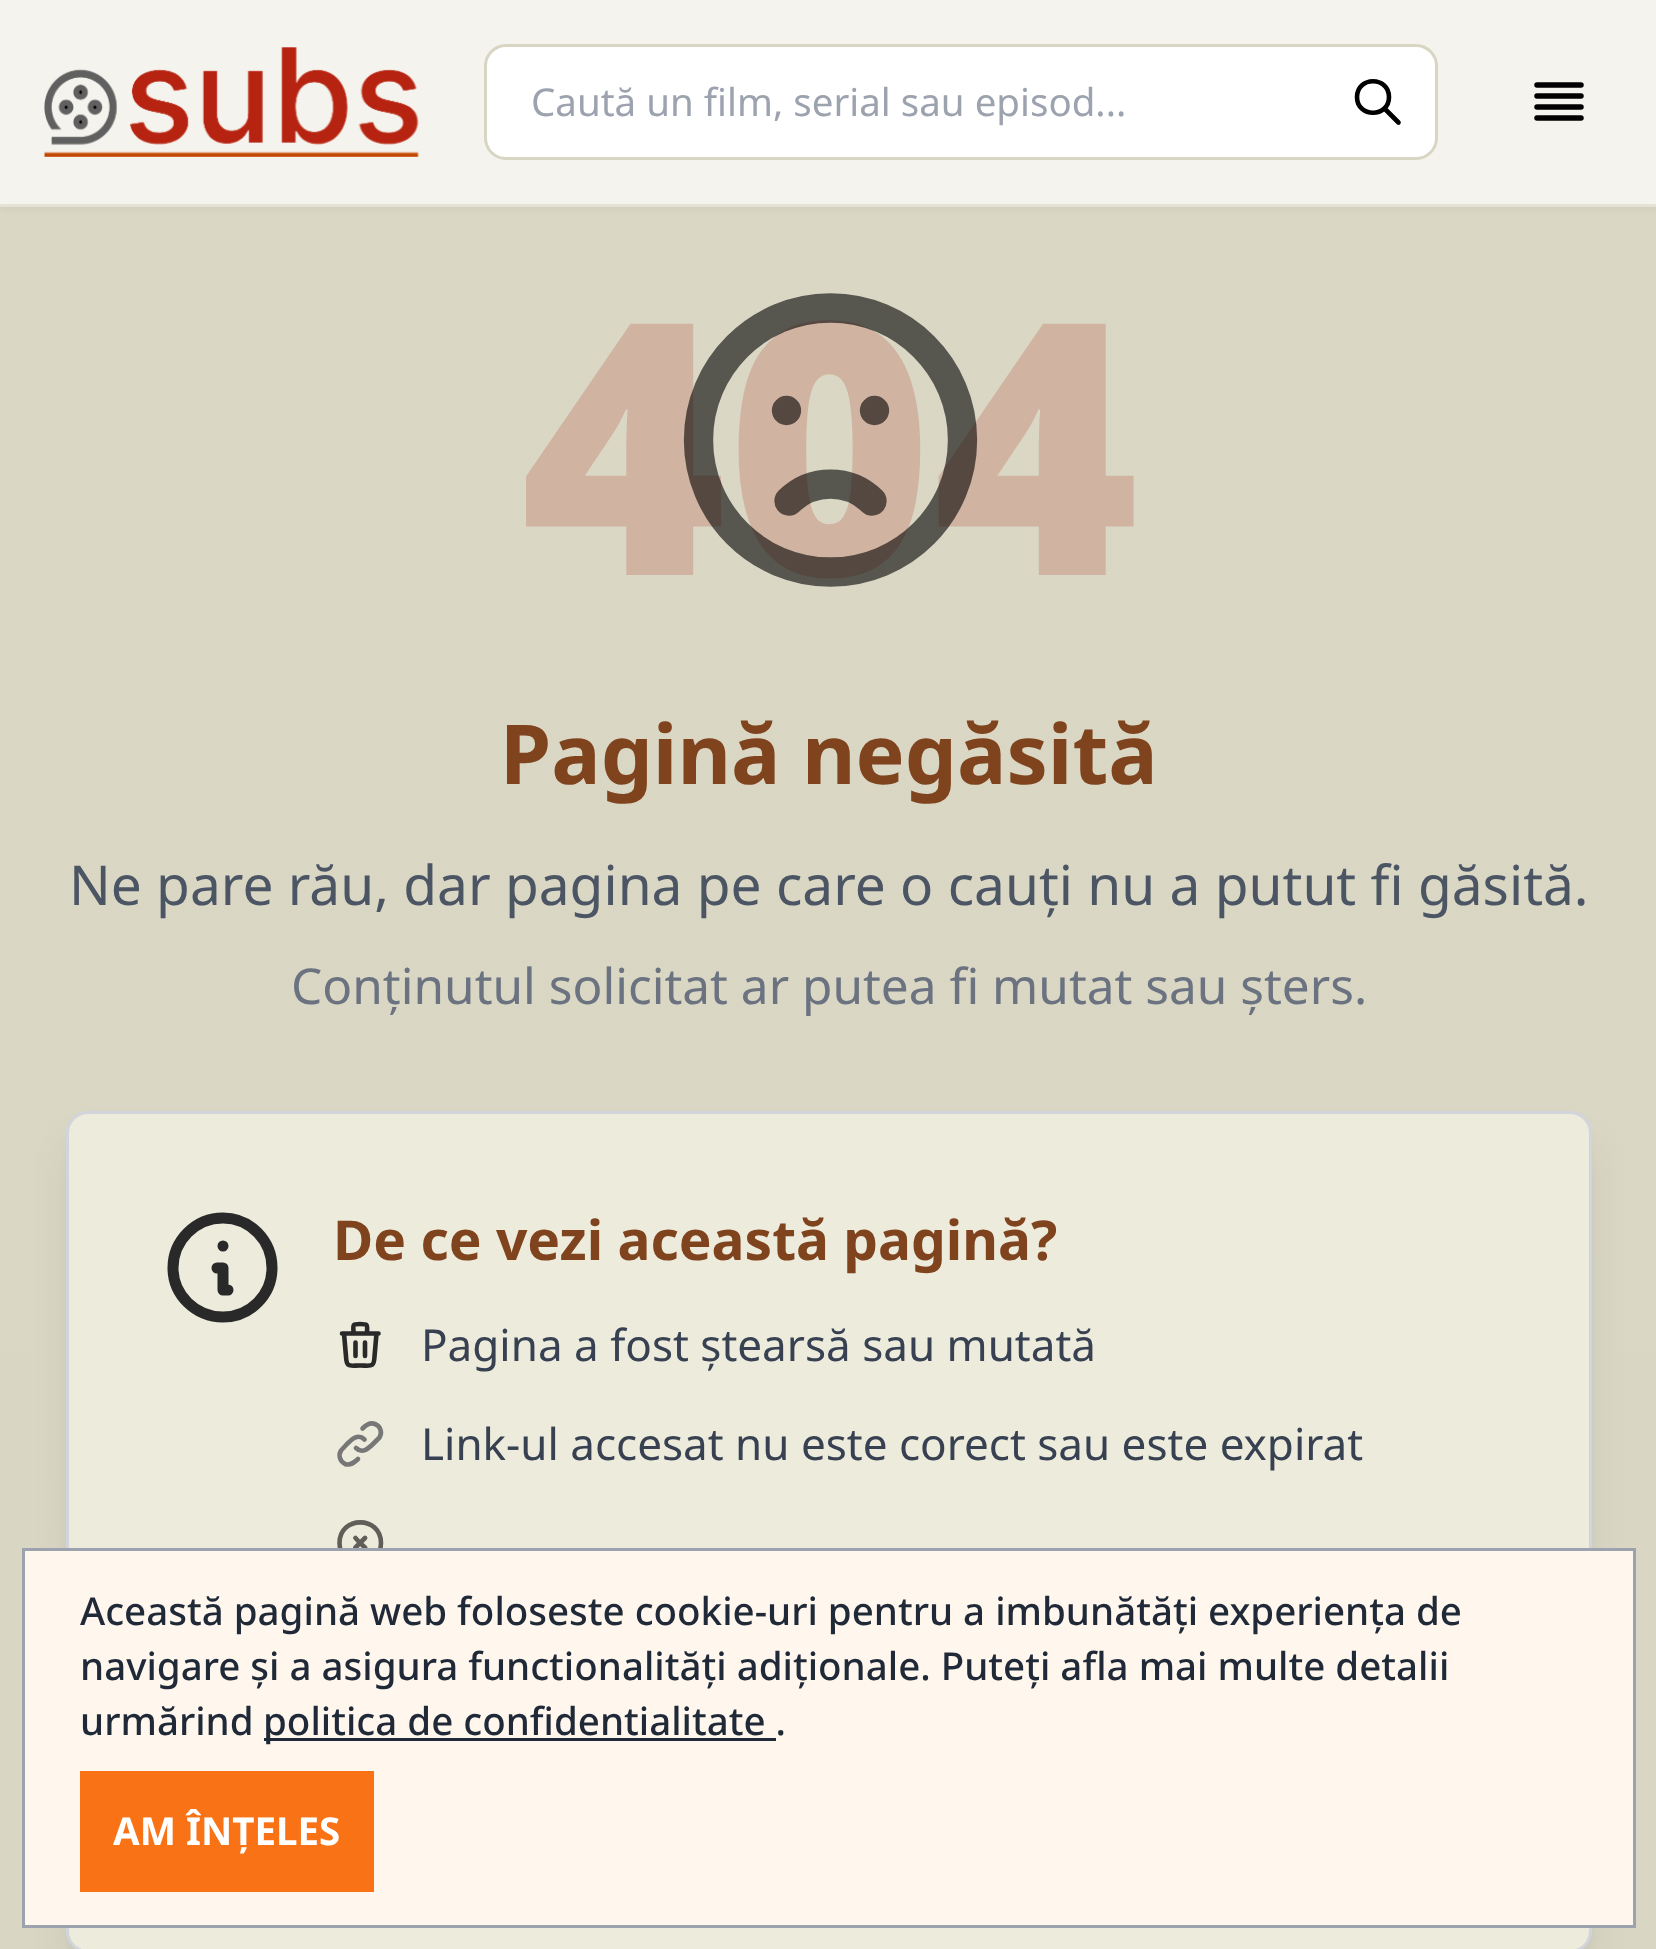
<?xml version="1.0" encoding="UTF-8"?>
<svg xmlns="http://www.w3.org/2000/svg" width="1656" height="1949">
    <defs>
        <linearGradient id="g1" gradientUnits="userSpaceOnUse" x1="829" y1="-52" x2="829" y2="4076"><stop offset="0" stop-color="#DAD7C5"/><stop offset="1" stop-color="#D8D6C3"/></linearGradient>
        <filter id="blur1" x="-50%" y="-200%" width="200%" height="500%"><feGaussianBlur stdDeviation="3"/></filter>
        <filter id="blur2" x="-50%" y="-200%" width="200%" height="500%"><feGaussianBlur stdDeviation="8"/></filter>
        <filter id="blur3" x="-50%" y="-200%" width="200%" height="500%"><feGaussianBlur stdDeviation="20.5"/></filter>
    </defs>
    <rect width="100%" height="100%" fill="#FFFFFF"/>
    <rect x="0" y="207" width="1656" height="1742" fill="url(#g1)"/>
    <rect x="0" y="3" width="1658" height="206" fill="#000000" fill-opacity="0.05" filter="url(#blur1)"/>
    <rect x="0" y="0" width="1656" height="204" fill="#F5F3ED"/>
    <rect x="0" y="204" width="1656" height="3" fill="#E5E1D5"/>
    <image x="44" y="47" width="375" height="110" href="img_01.png"/>
    <rect x="485.5" y="45.5" width="951" height="113" rx="20.5" fill="#FFFFFF" stroke="#D8D6C3" stroke-width="3"/>
    <text x="531" y="116" font-family="Noto Sans" font-size="38.5" fill="#9CA3AF">Caută un film, serial sau episod...</text>
    <path d="M 1398.5 122.5 L 1384.5 108.5 M 1389 97 C 1389 118 1357 118 1357 97 C 1357 76 1389 76 1389 97 Z" fill="none" stroke="#000000" stroke-width="4.6" stroke-linecap="round" stroke-linejoin="round"/>
    <path d="M 1537 85 H 1581 M 1537 96 H 1581 M 1537 107 H 1581 M 1537 118 H 1581" fill="none" stroke="#000000" stroke-width="5.5" stroke-linecap="round" stroke-linejoin="round"/>
    <text x="520" y="575" font-family="Noto Sans" font-size="352" font-weight="900" fill="#D1B3A1">404</text>
    <path d="M 789 501 C 812 478.5 849 478.5 872 501 M 786.5 410.5 H 786.5 M 874.5 410.5 H 874.5 M 962.5 440 C 962.5 513 903.5 572 830.5 572 C 757.5 572 698.5 513 698.5 440 C 698.5 367 757.5 308 830.5 308 C 903.5 308 962.5 367 962.5 440 Z" fill="none" stroke="#000000" stroke-opacity="0.6" stroke-width="29.3" stroke-linecap="round" stroke-linejoin="round"/>
    <text x="500" y="784" font-family="Noto Sans" font-size="82.5" font-weight="700" fill="#7F431E">Pagină negăsită</text>
    <text x="69" y="905" font-family="Noto Sans" font-size="55" fill="#4B5563">Ne pare rău, dar pagina pe care o cauți nu a putut fi găsită.</text>
    <text x="291" y="1004" font-family="Noto Sans" font-size="49.5" fill="#6B7280">Conținutul solicitat ar putea fi mutat sau șters.</text>
    <rect x="77" y="1133" width="1504" height="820" rx="11" fill="#000000" fill-opacity="0.1" filter="url(#blur2)"/>
    <rect x="74" y="1147" width="1510" height="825" rx="14" fill="#000000" fill-opacity="0.1" filter="url(#blur3)"/>
    <rect x="67.5" y="1112.5" width="1523" height="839" rx="20.5" fill="#EDEBDC" stroke="#D1D5DB" stroke-width="3"/>
    <path d="M 228 1290 H 223 V 1268 H 217 M 223 1246 H 223 M 272 1268 C 272 1295 250 1317 223 1317 C 195.5 1317 173 1295 173 1268 C 173 1240.5 195.5 1218 223 1218 C 250 1218 272 1240.5 272 1268 Z" fill="none" stroke="#292929" stroke-width="11" stroke-linecap="round" stroke-linejoin="round"/>
    <text x="333" y="1260" font-family="Noto Sans" font-size="55" font-weight="700" fill="#7F431E">De ce vezi această pagină?</text>
    <path d="M 376.5 1333.5 L 374.5 1356.5 C 374 1368 371 1365.5 360 1365.5 C 349.5 1365.5 346.5 1368 346 1356.5 L 344 1333.5 M 355.5 1342.5 V 1356 M 365 1342.5 V 1356 M 367 1333.5 C 367 1325 369 1324 360 1324 C 351.5 1324 353.5 1325 353.5 1333.5 M 342 1333.5 H 378.5" fill="none" stroke="#292929" stroke-width="4.6" stroke-linecap="round" stroke-linejoin="round"/>
    <text x="421" y="1361" font-family="Noto Sans" font-size="44" fill="#374151">Pagina a fost ștearsă sau mutată</text>
    <path d="M 364.5 1439.5 C 358 1433 351.5 1439.5 347 1444 L 341 1450.5 C 338 1455.5 340 1461.5 345 1464 C 350.5 1466 354.5 1462.5 358 1459 M 356 1448 C 362.5 1454.5 369 1448 373.5 1443.5 L 379.5 1437.5 C 382.5 1432.5 380.5 1426 375 1424 C 370 1422 366 1425 362.5 1428.5" fill="none" stroke="#777777" stroke-width="4.6" stroke-linecap="round" stroke-linejoin="round"/>
    <text x="421" y="1460" font-family="Noto Sans" font-size="44" fill="#374151">Link-ul accesat nu este corect sau este expirat</text>
    <path d="M 355.5 1547.5 L 360 1543 M 360 1543 L 365 1538 M 360 1543 L 355.5 1538 M 360 1543 L 365 1547.5 M 381 1543 C 381 1570 339.5 1570 339.5 1543 C 339.5 1515.5 381 1515.5 381 1543 Z" fill="none" stroke="#5F5E58" stroke-width="4.6" stroke-linecap="round" stroke-linejoin="round"/>
    <rect x="23.5" y="1549.5" width="1611" height="377" fill="#FFF7ED" stroke="#9CA3AF" stroke-width="3"/>
    <text font-family="Noto Sans" font-size="38.5" font-weight="500" fill="#1F2937">
        <tspan x="80" y="1625">Această pagină web foloseste cookie-uri pentru a imbunătăți experiența de</tspan>
        <tspan x="80" y="1680">navigare și a asigura functionalități adiționale. Puteți afla mai multe detalii</tspan>
        <tspan x="80" y="1735">urmărind</tspan>
    </text>
    <rect x="264" y="1738" width="512" height="3" fill="#1F2937"/>
    <text x="263" y="1735" font-family="Noto Sans" font-size="38.5" font-weight="500" fill="#1F2937">politica de confidentialitate .</text>
    <rect x="80" y="1771" width="294" height="121" fill="#F97316"/>
    <text x="113" y="1845" font-family="Noto Sans" font-size="38.5" font-weight="700" fill="#FFFFFF">AM ÎNȚELES</text>
</svg>
